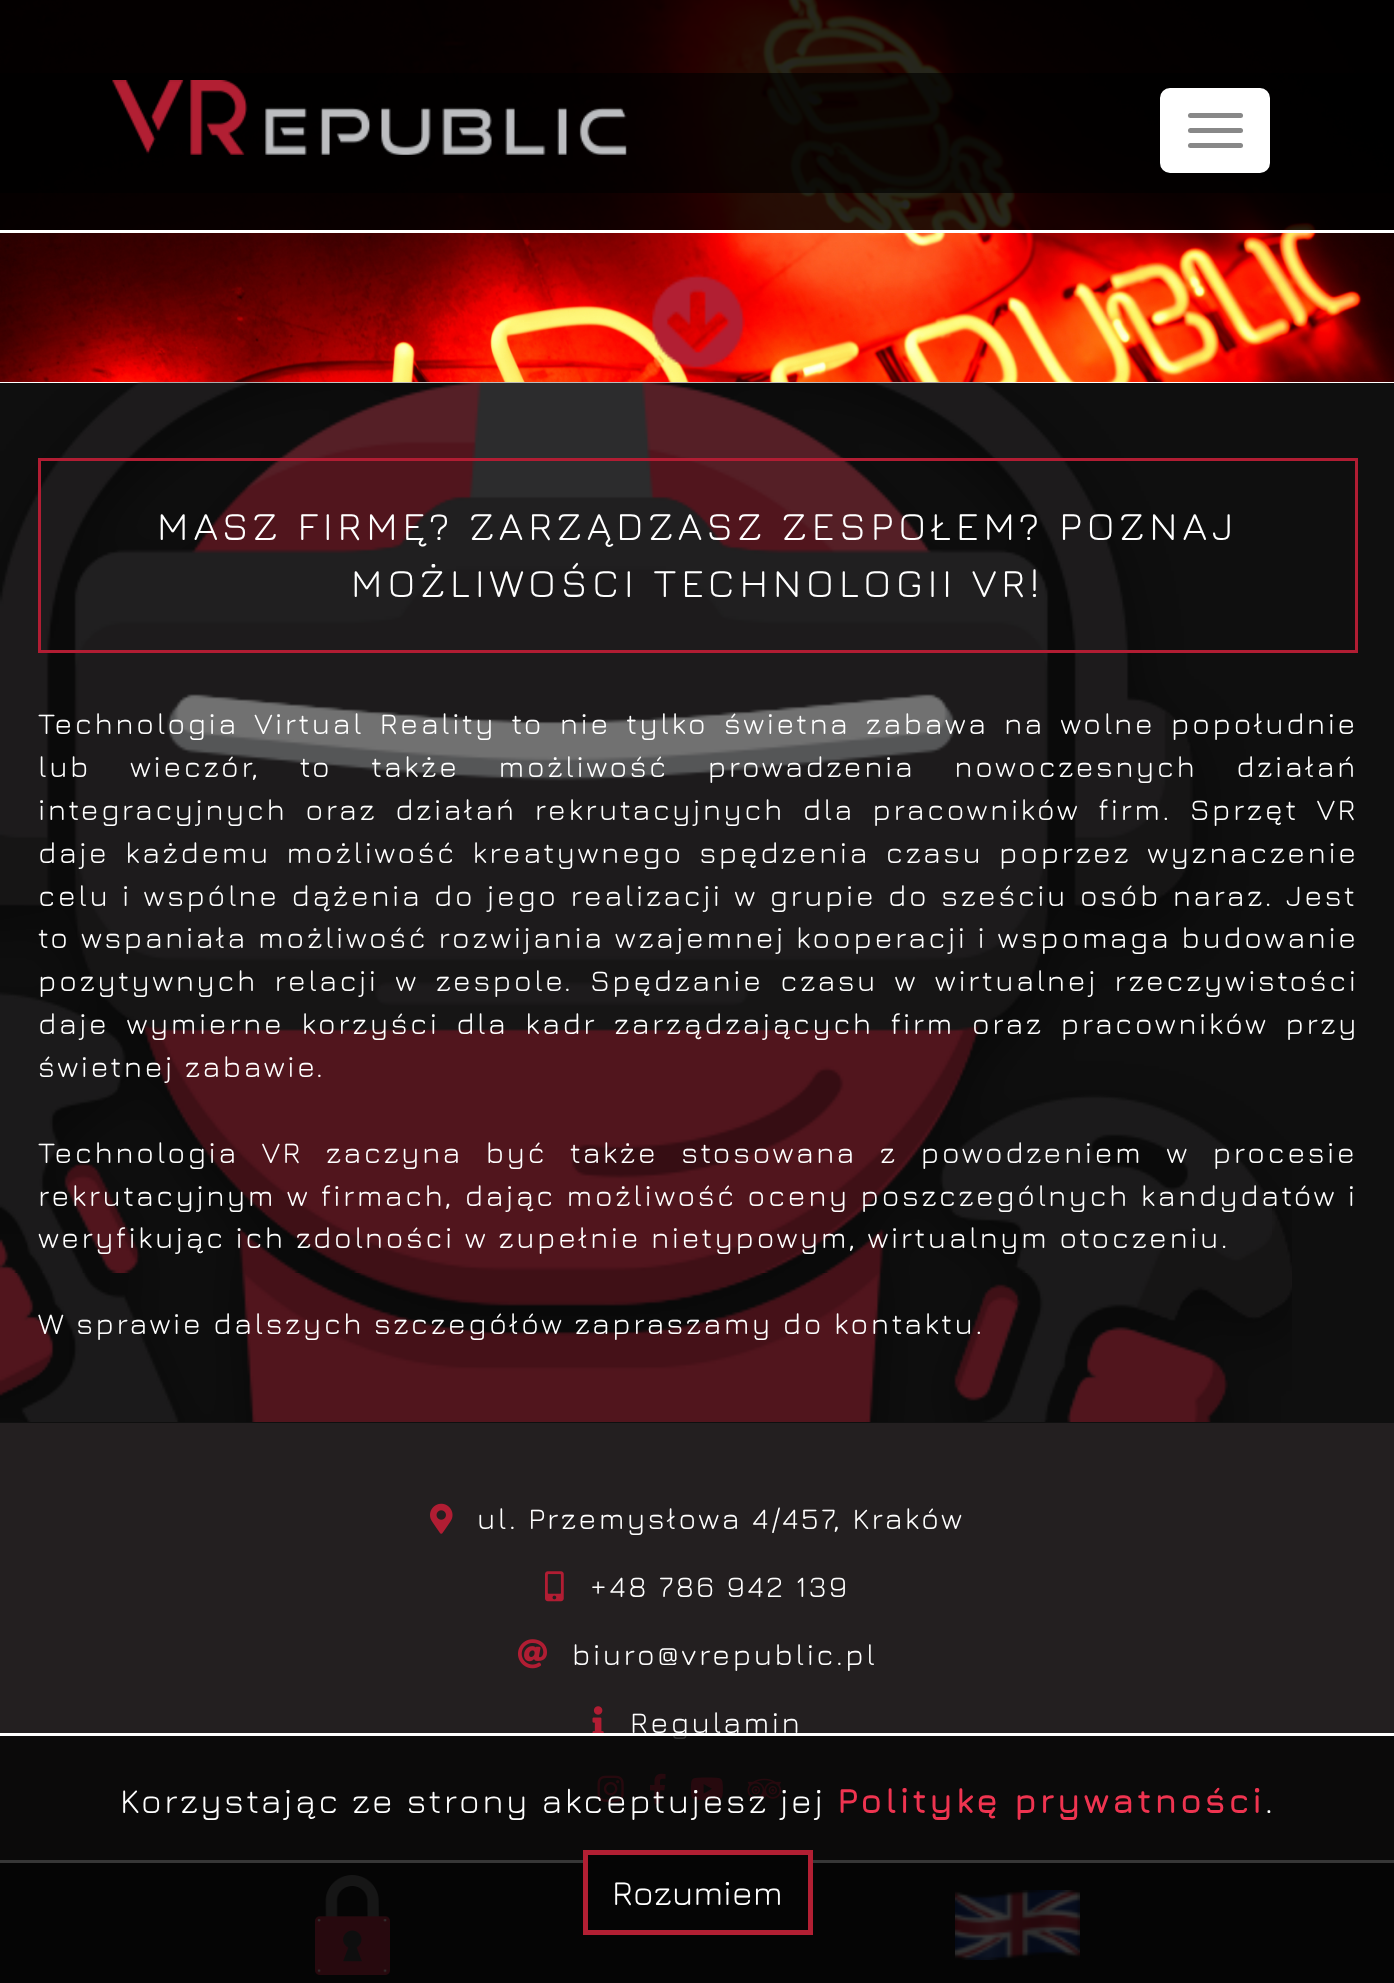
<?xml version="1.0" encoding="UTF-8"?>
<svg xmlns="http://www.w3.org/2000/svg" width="1394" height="1983">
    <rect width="100%" height="100%" fill="#FFFFFF"/>
    <image x="0" y="0" width="1394" height="382" href="img_01.png"/>
    <rect x="0" y="73" width="1394" height="120" fill="#000000" fill-opacity="0.65"/>
    <image x="651" y="274" width="94" height="94" href="img_02.png"/>
    <rect x="0" y="0" width="1394" height="230" fill="#000000" fill-opacity="0.85"/>
    <rect x="0" y="230" width="1394" height="3" fill="#FFFFFF"/>
    <image x="112" y="80" width="515" height="75" href="img_03.png"/>
    <rect x="1161.5" y="89.5" width="107" height="82" rx="8.5" fill="#FFFFFF" stroke="#FFFFFF" stroke-width="3"/>
    <rect x="1188" y="113" width="55" height="5" rx="2.5" fill="#888888"/>
    <rect x="1188" y="128" width="55" height="5" rx="2.5" fill="#888888"/>
    <rect x="1188" y="143" width="55" height="5" rx="2.5" fill="#888888"/>
    <rect x="0" y="383" width="1394" height="1040" fill="#0F0F0F"/>
    <image x="0" y="382" width="1292" height="1040" href="img_04.png"/>
    <rect x="39.5" y="459.5" width="1317" height="192" fill="none" stroke="#B11D33" stroke-width="3"/>
    <text x="157" y="540" font-family="Jura" font-size="40" letter-spacing="5" fill="#FFFFFF">MASZ FIRMĘ? ZARZĄDZASZ ZESPOŁEM? POZNAJ</text>
    <text x="351" y="597" font-family="Jura" font-size="40" letter-spacing="5" fill="#FFFFFF">MOŻLIWOŚCI TECHNOLOGII VR!</text>
    <text font-family="Jura" font-size="30" letter-spacing="2.5" fill="#FFFFFF">
        <tspan x="38" y="734" word-spacing="5.5">Technologia Virtual Reality to nie tylko świetna zabawa na wolne popołudnie</tspan>
        <tspan x="38" y="777" word-spacing="29">lub wieczór, to także możliwość prowadzenia nowoczesnych działań</tspan>
        <tspan x="38" y="820" word-spacing="8">integracyjnych oraz działań rekrutacyjnych dla pracowników firm. Sprzęt VR</tspan>
        <tspan x="38" y="863" word-spacing="5.75">daje każdemu możliwość kreatywnego spędzenia czasu poprzez wyznaczenie</tspan>
        <tspan x="38" y="906" word-spacing="1.8">celu i wspólne dążenia do jego realizacji w grupie do sześciu osób naraz. Jest</tspan>
        <tspan x="38" y="948" word-spacing="0.25">to wspaniała możliwość rozwijania wzajemnej kooperacji i wspomaga budowanie</tspan>
        <tspan x="38" y="991" word-spacing="6.75">pozytywnych relacji w zespole. Spędzanie czasu w wirtualnej rzeczywistości</tspan>
        <tspan x="38" y="1034" word-spacing="7">daje wymierne korzyści dla kadr zarządzających firm oraz pracowników przy</tspan>
        <tspan x="38" y="1077">świetnej zabawie.</tspan>
    </text>
    <text font-family="Jura" font-size="30" letter-spacing="2.5" fill="#FFFFFF">
        <tspan x="38" y="1163" word-spacing="13">Technologia VR zaczyna być także stosowana z powodzeniem w procesie</tspan>
        <tspan x="38" y="1206" word-spacing="0.75">rekrutacyjnym w firmach, dając możliwość oceny poszczególnych kandydatów i</tspan>
        <tspan x="38" y="1248">weryfikując ich zdolności w zupełnie nietypowym, wirtualnym otoczeniu.</tspan>
    </text>
    <text x="38" y="1334" font-family="Jura" font-size="30" letter-spacing="2.5" fill="#FFFFFF">W sprawie dalszych szczegółów zapraszamy do kontaktu.</text>
    <rect x="0" y="1423" width="1394" height="437" fill="#231F20"/>
    <image x="430" y="1503" width="23" height="31" href="img_05.png"/>
    <text x="477" y="1529" font-family="Jura" font-size="30" letter-spacing="2.5" fill="#FFFFFF">ul. Przemysłowa 4/457, Kraków</text>
    <image x="545" y="1571" width="19" height="31" href="img_06.png"/>
    <text x="590" y="1597" font-family="Jura" font-size="30" letter-spacing="2.5" fill="#FFFFFF">+48 786 942 139</text>
    <image x="518" y="1639" width="29" height="30" href="img_07.png"/>
    <text x="572" y="1665" font-family="Jura" font-size="30" letter-spacing="2.5" fill="#FFFFFF">biuro@vrepublic.pl</text>
    <image x="592" y="1706" width="12" height="31" href="img_08.png"/>
    <text x="630" y="1733" font-family="Jura" font-size="30" letter-spacing="2.5" fill="#FFFFFF">Regulamin</text>
    <image x="597" y="1775" width="27" height="27" href="img_09.png"/>
    <image x="650" y="1773" width="16" height="31" href="img_10.png"/>
    <image x="690" y="1777" width="33" height="23" href="img_11.png"/>
    <image x="747" y="1778" width="35" height="21" href="img_12.png"/>
    <rect x="0" y="1863" width="1394" height="120" fill="#050505"/>
    <image x="315" y="1875" width="75" height="100" href="img_13.png"/>
    <image x="955" y="1890" width="125" height="70" href="img_14.png"/>
    <rect x="0" y="1736" width="1394" height="239" fill="#050505" fill-opacity="0.8"/>
    <rect x="0" y="1733" width="1394" height="3" fill="#FFFFFF"/>
    <text x="120" y="1813" font-family="Jura" font-size="35" letter-spacing="2.5" fill="#FFFFFF">Korzystając ze strony akceptujesz jej</text>
    <text x="837" y="1813" font-family="Jura" font-size="35" font-weight="700" letter-spacing="2.5" fill="#EF3450">Politykę prywatności</text>
    <text x="1265" y="1813" font-family="Jura" font-size="35" letter-spacing="2.5" fill="#FFFFFF">.</text>
    <rect x="588" y="1855" width="220" height="8" fill="#050505"/>
    <rect x="585.5" y="1852.5" width="225" height="80" fill="none" stroke="#B21F33" stroke-width="5"/>
    <text x="612" y="1905" font-family="Jura" font-size="35" fill="#FFFFFF">Rozumiem</text>
</svg>
